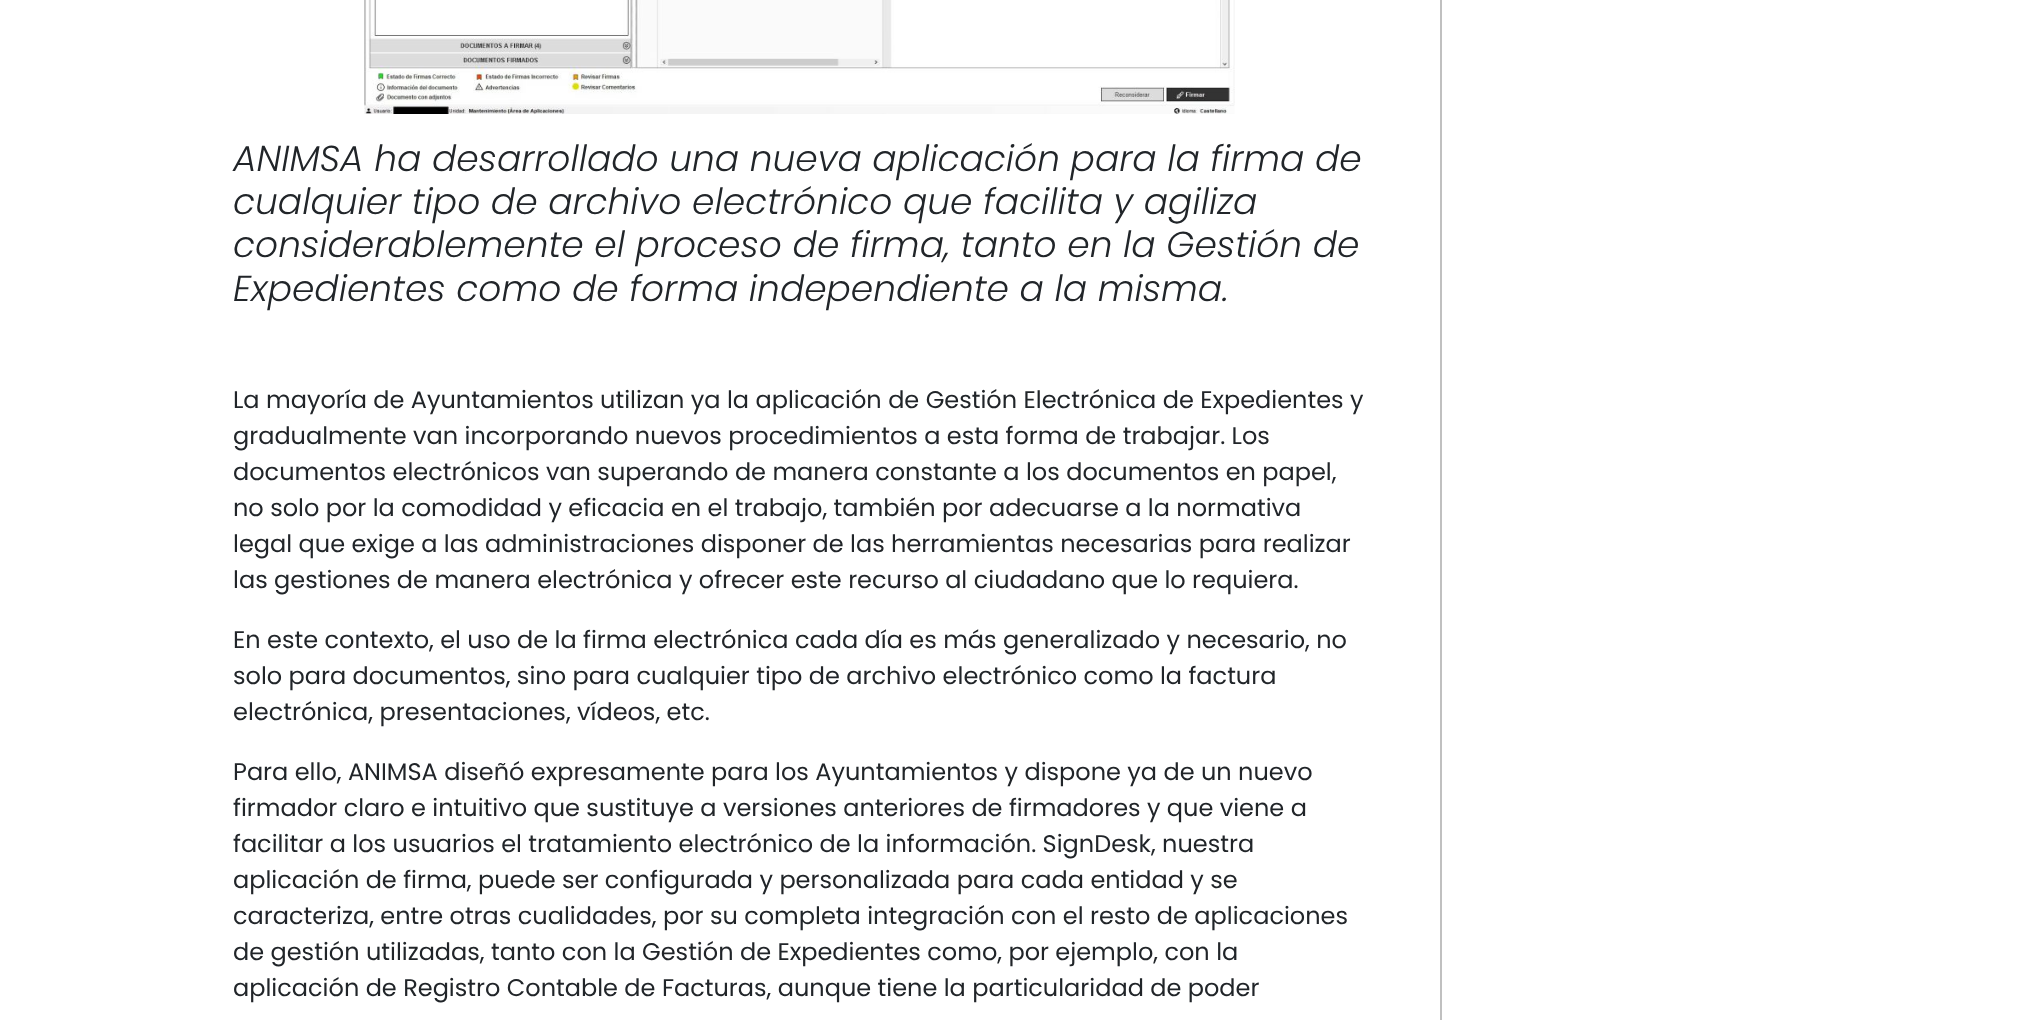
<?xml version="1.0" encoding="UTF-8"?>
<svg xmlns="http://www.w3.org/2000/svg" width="2024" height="1020">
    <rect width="100%" height="100%" fill="#FFFFFF"/>
    <image x="364" y="0" width="871" height="114" href="img_01.png"/>
    <text font-family="Poppins" font-size="36" font-weight="300" font-style="italic" fill="#212529">
        <tspan x="233" y="171">ANIMSA ha desarrollado una nueva aplicación para la firma de</tspan>
        <tspan x="233" y="214">cualquier tipo de archivo electrónico que facilita y agiliza</tspan>
        <tspan x="233" y="257">considerablemente el proceso de firma, tanto en la Gestión de</tspan>
        <tspan x="233" y="301">Expedientes como de forma independiente a la misma.</tspan>
    </text>
    <text font-family="Poppins" font-size="24" fill="#212529">
        <tspan x="233" y="408">La mayoría de Ayuntamientos utilizan ya la aplicación de Gestión Electrónica de Expedientes y</tspan>
        <tspan x="233" y="444">gradualmente van incorporando nuevos procedimientos a esta forma de trabajar. Los</tspan>
        <tspan x="233" y="480">documentos electrónicos van superando de manera constante a los documentos en papel,</tspan>
        <tspan x="233" y="516">no solo por la comodidad y eficacia en el trabajo, también por adecuarse a la normativa</tspan>
        <tspan x="233" y="552">legal que exige a las administraciones disponer de las herramientas necesarias para realizar</tspan>
        <tspan x="233" y="588">las gestiones de manera electrónica y ofrecer este recurso al ciudadano que lo requiera.</tspan>
    </text>
    <text font-family="Poppins" font-size="24" fill="#212529">
        <tspan x="233" y="648">En este contexto, el uso de la firma electrónica cada día es más generalizado y necesario, no</tspan>
        <tspan x="233" y="684">solo para documentos, sino para cualquier tipo de archivo electrónico como la factura</tspan>
        <tspan x="233" y="720">electrónica, presentaciones, vídeos, etc.</tspan>
    </text>
    <text font-family="Poppins" font-size="24" fill="#212529">
        <tspan x="233" y="780">Para ello, ANIMSA diseñó expresamente para los Ayuntamientos y dispone ya de un nuevo</tspan>
        <tspan x="233" y="816">firmador claro e intuitivo que sustituye a versiones anteriores de firmadores y que viene a</tspan>
        <tspan x="233" y="852">facilitar a los usuarios el tratamiento electrónico de la información. SignDesk, nuestra</tspan>
        <tspan x="233" y="888">aplicación de firma, puede ser configurada y personalizada para cada entidad y se</tspan>
        <tspan x="233" y="924">caracteriza, entre otras cualidades, por su completa integración con el resto de aplicaciones</tspan>
        <tspan x="233" y="960">de gestión utilizadas, tanto con la Gestión de Expedientes como, por ejemplo, con la</tspan>
        <tspan x="233" y="996">aplicación de Registro Contable de Facturas, aunque tiene la particularidad de poder</tspan>
    </text>
    <rect x="1440" y="0" width="2" height="1020" fill="#C0C0C0"/>
</svg>
